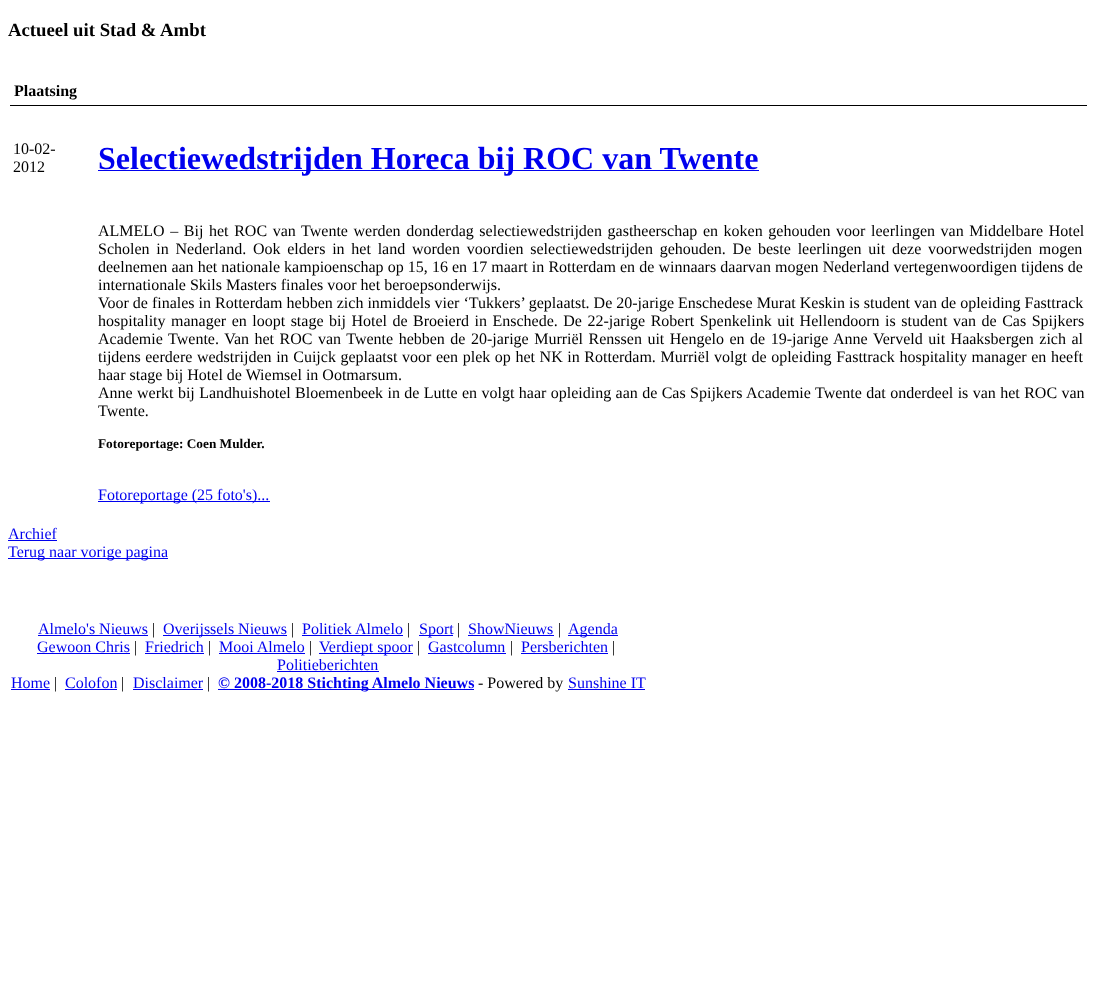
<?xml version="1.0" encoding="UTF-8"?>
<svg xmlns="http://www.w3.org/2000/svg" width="1097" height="1003">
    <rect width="100%" height="100%" fill="#FFFFFF"/>
    <text x="8" y="36" font-family="Liberation Serif" font-size="18.75" font-weight="700" fill="#000000">Actueel uit Stad &amp; Ambt</text>
    <text x="14" y="96" font-family="Liberation Serif" font-size="16" font-weight="700" fill="#000000">Plaatsing</text>
    <rect x="10" y="105" width="1077" height="1" fill="#000000"/>
    <text font-family="Liberation Serif" font-size="16" fill="#000000">
        <tspan x="13" y="154">10-02-</tspan>
        <tspan x="13" y="172">2012</tspan>
    </text>
    <rect x="98" y="170" width="661" height="1" fill="#0000EE"/>
    <text x="98" y="169" font-family="Liberation Serif" font-size="32" font-weight="700" fill="#0000EE">Selectiewedstrijden Horeca bij ROC van Twente</text>
    <text font-family="Liberation Serif" font-size="16" fill="#000000">
        <tspan x="98" y="236" word-spacing="1.6">ALMELO – Bij het ROC van Twente werden donderdag selectiewedstrijden gastheerschap en koken gehouden voor leerlingen van Middelbare Hotel</tspan>
        <tspan x="98" y="254" word-spacing="2.75">Scholen in Nederland. Ook elders in het land worden voordien selectiewedstrijden gehouden. De beste leerlingen uit deze voorwedstrijden mogen</tspan>
        <tspan x="98" y="272" word-spacing="0.1">deelnemen aan het nationale kampioenschap op 15, 16 en 17 maart in Rotterdam en de winnaars daarvan mogen Nederland vertegenwoordigen tijdens de</tspan>
        <tspan x="98" y="290">internationale Skils Masters finales voor het beroepsonderwijs.</tspan>
        <tspan x="98" y="308">Voor de finales in Rotterdam hebben zich inmiddels vier ‘Tukkers’ geplaatst. De 20-jarige Enschedese Murat Keskin is student van de opleiding Fasttrack</tspan>
        <tspan x="98" y="326" word-spacing="1.5">hospitality manager en loopt stage bij Hotel de Broeierd in Enschede. De 22-jarige Robert Spenkelink uit Hellendoorn is student van de Cas Spijkers</tspan>
        <tspan x="98" y="344" word-spacing="1.5">Academie Twente. Van het ROC van Twente hebben de 20-jarige Murriël Renssen uit Hengelo en de 19-jarige Anne Verveld uit Haaksbergen zich al</tspan>
        <tspan x="98" y="362" word-spacing="0.6">tijdens eerdere wedstrijden in Cuijck geplaatst voor een plek op het NK in Rotterdam. Murriël volgt de opleiding Fasttrack hospitality manager en heeft</tspan>
        <tspan x="98" y="380">haar stage bij Hotel de Wiemsel in Ootmarsum.</tspan>
        <tspan x="98" y="398" word-spacing="0.4">Anne werkt bij Landhuishotel Bloemenbeek in de Lutte en volgt haar opleiding aan de Cas Spijkers Academie Twente dat onderdeel is van het ROC van</tspan>
        <tspan x="98" y="416">Twente.</tspan>
    </text>
    <text x="98" y="448" font-family="Liberation Serif" font-size="13.3" font-weight="700" fill="#000000">Fotoreportage: Coen Mulder.</text>
    <rect x="98" y="501" width="172" height="1" fill="#0000EE"/>
    <text x="98" y="500" font-family="Liberation Serif" font-size="16" fill="#0000EE">Fotoreportage (25 foto's)...</text>
    <text x="8" y="539" font-family="Liberation Serif" font-size="16" fill="#0000EE">Archief</text>
    <rect x="8" y="540" width="49" height="1" fill="#0000EE"/>
    <rect x="8" y="558" width="160" height="1" fill="#0000EE"/>
    <text x="8" y="557" font-family="Liberation Serif" font-size="16" fill="#0000EE">Terug naar vorige pagina</text>
    <text x="38" y="634" font-family="Liberation Serif" font-size="16" fill="#0000EE">Almelo's Nieuws</text>
    <rect x="38" y="635" width="110" height="1" fill="#0000EE"/>
    <text x="152" y="634" font-family="Liberation Serif" font-size="16" fill="#000000">|</text>
    <rect x="163" y="635" width="124" height="1" fill="#0000EE"/>
    <text x="163" y="634" font-family="Liberation Serif" font-size="16" fill="#0000EE">Overijssels Nieuws</text>
    <text x="291" y="634" font-family="Liberation Serif" font-size="16" fill="#000000">|</text>
    <text x="302" y="634" font-family="Liberation Serif" font-size="16" fill="#0000EE">Politiek Almelo</text>
    <rect x="302" y="635" width="101" height="1" fill="#0000EE"/>
    <text x="407" y="634" font-family="Liberation Serif" font-size="16" fill="#000000">|</text>
    <rect x="419" y="635" width="34" height="1" fill="#0000EE"/>
    <text x="419" y="634" font-family="Liberation Serif" font-size="16" fill="#0000EE">Sport</text>
    <text x="457" y="634" font-family="Liberation Serif" font-size="16" fill="#000000">|</text>
    <text x="468" y="634" font-family="Liberation Serif" font-size="16" fill="#0000EE">ShowNieuws</text>
    <rect x="468" y="635" width="86" height="1" fill="#0000EE"/>
    <text x="558" y="634" font-family="Liberation Serif" font-size="16" fill="#000000">|</text>
    <rect x="568" y="635" width="50" height="1" fill="#0000EE"/>
    <text x="568" y="634" font-family="Liberation Serif" font-size="16" fill="#0000EE">Agenda</text>
    <text x="37" y="652" font-family="Liberation Serif" font-size="16" fill="#0000EE">Gewoon Chris</text>
    <rect x="37" y="653" width="93" height="1" fill="#0000EE"/>
    <text x="134" y="652" font-family="Liberation Serif" font-size="16" fill="#000000">|</text>
    <text x="145" y="652" font-family="Liberation Serif" font-size="16" fill="#0000EE">Friedrich</text>
    <rect x="145" y="653" width="59" height="1" fill="#0000EE"/>
    <text x="208" y="652" font-family="Liberation Serif" font-size="16" fill="#000000">|</text>
    <text x="219" y="652" font-family="Liberation Serif" font-size="16" fill="#0000EE">Mooi Almelo</text>
    <rect x="219" y="653" width="86" height="1" fill="#0000EE"/>
    <text x="309" y="652" font-family="Liberation Serif" font-size="16" fill="#000000">|</text>
    <rect x="319" y="653" width="94" height="1" fill="#0000EE"/>
    <text x="319" y="652" font-family="Liberation Serif" font-size="16" fill="#0000EE">Verdiept spoor</text>
    <text x="417" y="652" font-family="Liberation Serif" font-size="16" fill="#000000">|</text>
    <text x="428" y="652" font-family="Liberation Serif" font-size="16" fill="#0000EE">Gastcolumn</text>
    <rect x="428" y="653" width="78" height="1" fill="#0000EE"/>
    <text x="510" y="652" font-family="Liberation Serif" font-size="16" fill="#000000">|</text>
    <text x="521" y="652" font-family="Liberation Serif" font-size="16" fill="#0000EE">Persberichten</text>
    <rect x="521" y="653" width="87" height="1" fill="#0000EE"/>
    <text x="612" y="652" font-family="Liberation Serif" font-size="16" fill="#000000">|</text>
    <text x="277" y="670" font-family="Liberation Serif" font-size="16" fill="#0000EE">Politieberichten</text>
    <rect x="277" y="671" width="102" height="1" fill="#0000EE"/>
    <text x="11" y="688" font-family="Liberation Serif" font-size="16" fill="#0000EE">Home</text>
    <rect x="11" y="689" width="39" height="1" fill="#0000EE"/>
    <text x="54" y="688" font-family="Liberation Serif" font-size="16" fill="#000000">|</text>
    <text x="65" y="688" font-family="Liberation Serif" font-size="16" fill="#0000EE">Colofon</text>
    <rect x="65" y="689" width="52" height="1" fill="#0000EE"/>
    <text x="121" y="688" font-family="Liberation Serif" font-size="16" fill="#000000">|</text>
    <text x="133" y="688" font-family="Liberation Serif" font-size="16" fill="#0000EE">Disclaimer</text>
    <rect x="133" y="689" width="70" height="1" fill="#0000EE"/>
    <text x="207" y="688" font-family="Liberation Serif" font-size="16" fill="#000000">|</text>
    <rect x="218" y="689" width="256" height="1" fill="#0000EE"/>
    <text x="218" y="688" font-family="Liberation Serif" font-size="16" font-weight="700" fill="#0000EE">© 2008-2018 Stichting Almelo Nieuws</text>
    <text x="478" y="688" font-family="Liberation Serif" font-size="16" fill="#000000">- Powered by</text>
    <text x="568" y="688" font-family="Liberation Serif" font-size="16" fill="#0000EE">Sunshine IT</text>
    <rect x="568" y="689" width="77" height="1" fill="#0000EE"/>
</svg>
